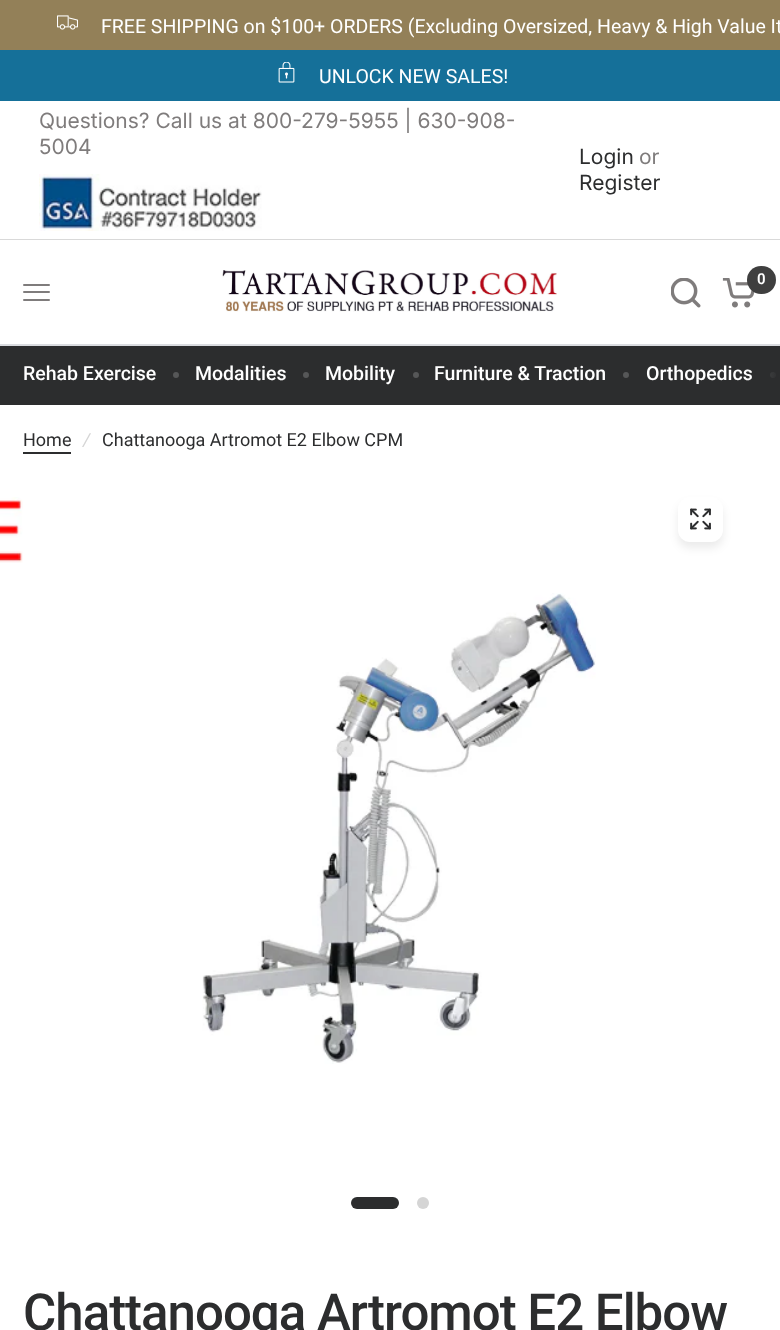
<?xml version="1.0" encoding="UTF-8"?>
<svg xmlns="http://www.w3.org/2000/svg" width="780" height="1330">
    <defs>
        <linearGradient id="g1" gradientUnits="userSpaceOnUse" x1="750" y1="374" x2="780" y2="374"><stop offset="0" stop-color="#2C2D2E" stop-opacity="0"/><stop offset="1" stop-color="#2C2D2E"/></linearGradient>
        <filter id="blur1" x="-50%" y="-200%" width="200%" height="500%"><feGaussianBlur stdDeviation="4.5"/></filter>
    </defs>
    <rect width="100%" height="100%" fill="#FFFFFF"/>
    <rect x="0" y="0" width="780" height="50" fill="#938058"/>
    <image x="57" y="15" width="21" height="15" href="img_01.png"/>
    <text x="101" y="33" font-family="Roboto" font-size="19.5" fill="#FFFFFF">FREE SHIPPING on $100+ ORDERS (Excluding Oversized, Heavy &amp; High Value It</text>
    <rect x="0" y="50" width="780" height="51" fill="#157099"/>
    <image x="278" y="62" width="17" height="21" href="img_02.png"/>
    <text x="319" y="83" font-family="Roboto" font-size="19.5" fill="#FFFFFF">UNLOCK NEW SALES!</text>
    <rect x="0" y="239" width="780" height="1" fill="#D9D9D9"/>
    <text font-family="Inter" font-size="21" fill="#7F7C7C">
        <tspan x="39" y="128">Questions? Call us at 800-279-5955 | 630-908-</tspan>
        <tspan x="39" y="154">5004</tspan>
    </text>
    <image x="39" y="174" width="223" height="57" href="img_03.png"/>
    <text x="579" y="164" font-family="Inter" font-size="21" fill="#2C2D2E">Login</text>
    <text x="639" y="164" font-family="Inter" font-size="21" fill="#7F7C7C">or</text>
    <text x="579" y="190" font-family="Inter" font-size="21" fill="#2C2D2E">Register</text>
    <image x="222" y="270" width="335" height="42" href="img_04.png"/>
    <image x="671" y="278" width="30" height="30" href="img_05.png"/>
    <image x="722" y="278" width="33" height="30" href="img_06.png"/>
    <rect x="747" y="266" width="29" height="28" rx="14" fill="#3F3F3F"/>
    <text x="757" y="284" font-family="Roboto" font-size="15" font-weight="600" fill="#FFFFFF">0</text>
    <rect x="23" y="284" width="27" height="2" rx="1" fill="#7F7C7C"/>
    <rect x="23" y="291" width="27" height="2" rx="1" fill="#7F7C7C"/>
    <rect x="23" y="299" width="27" height="2" rx="1" fill="#7F7C7C"/>
    <rect x="0" y="344" width="780" height="2" fill="#DADCE0"/>
    <rect x="0" y="346" width="780" height="59" fill="#2C2D2E"/>
    <text x="23" y="380" font-family="Roboto" font-size="19.5" font-weight="500" fill="#FFFFFF">Rehab Exercise</text>
    <circle cx="176" cy="375" r="3" fill="#565758"/>
    <text x="195" y="380" font-family="Roboto" font-size="19.5" font-weight="500" fill="#FFFFFF">Modalities</text>
    <circle cx="306" cy="375" r="3" fill="#565758"/>
    <text x="325" y="380" font-family="Roboto" font-size="19.5" font-weight="500" fill="#FFFFFF">Mobility</text>
    <circle cx="416" cy="375" r="3" fill="#565758"/>
    <text x="434" y="380" font-family="Roboto" font-size="19.5" font-weight="500" fill="#FFFFFF">Furniture &amp; Traction</text>
    <circle cx="626" cy="375" r="3" fill="#565758"/>
    <text x="646" y="380" font-family="Roboto" font-size="19.5" font-weight="500" fill="#FFFFFF">Orthopedics</text>
    <circle cx="773" cy="375" r="3" fill="#565758"/>
    <rect x="751" y="372" width="25" height="6" fill="url(#g1)"/>
    <text x="23" y="446" font-family="Roboto" font-size="18" fill="#2C2D2E">Home</text>
    <rect x="23" y="452" width="48" height="2" fill="#2C2D2E"/>
    <text x="83" y="446" font-family="Roboto" font-size="18" font-style="italic" fill="#D5D5D5">/</text>
    <text x="102" y="446" font-family="Roboto" font-size="18" fill="#2C2D2E">Chattanooga Artromot E2 Elbow CPM</text>
    <image x="0" y="497" width="23" height="66" href="img_07.png"/>
    <rect x="678" y="503" width="45" height="45" rx="12" fill="#000000" fill-opacity="0.08" filter="url(#blur1)"/>
    <rect x="678" y="497" width="45" height="45" rx="12" fill="#FFFFFF"/>
    <image x="690" y="508" width="21" height="22" href="img_08.png"/>
    <image x="202" y="593" width="394" height="471" href="img_09.png"/>
    <rect x="351" y="1197" width="48" height="12" rx="6" fill="#2C2D2E"/>
    <circle cx="423" cy="1203" r="6" fill="#D5D5D5"/>
    <text x="23" y="1330" font-family="Roboto" font-size="51" font-weight="500" letter-spacing="-1" fill="#2C2D2E">Chattanooga Artromot E2 Elbow</text>
</svg>
